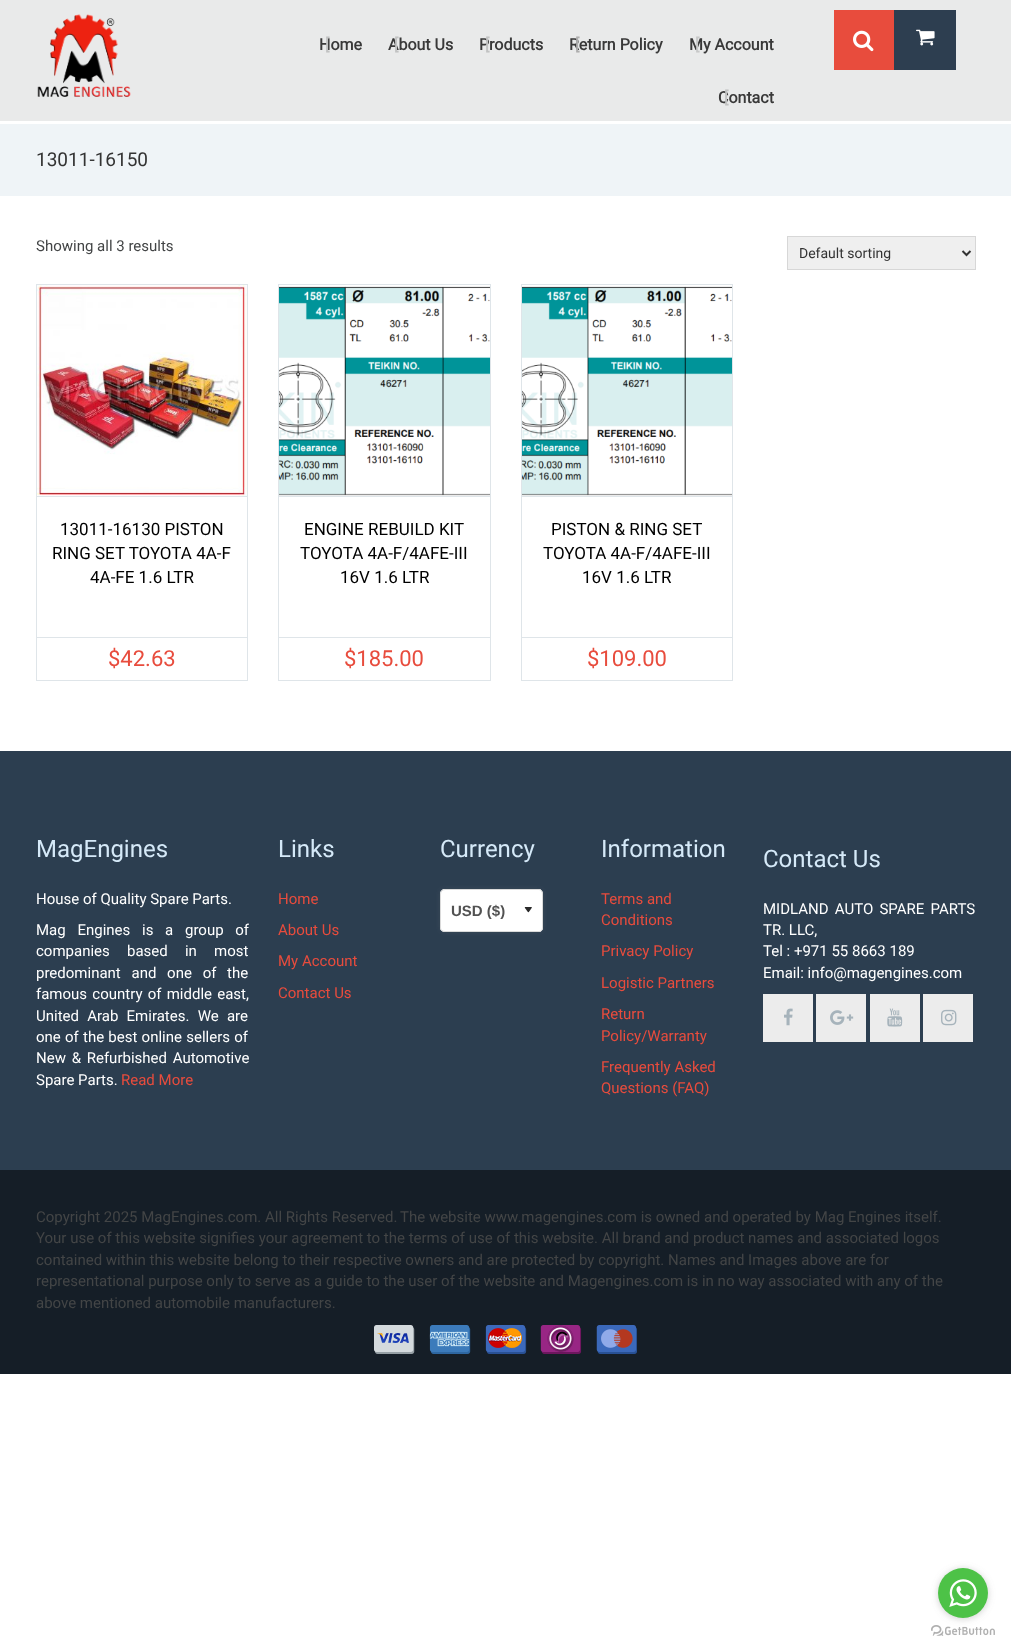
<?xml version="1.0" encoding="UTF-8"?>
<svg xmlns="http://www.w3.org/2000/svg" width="1011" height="1652">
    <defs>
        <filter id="blur1" x="-50%" y="-200%" width="200%" height="500%"><feGaussianBlur stdDeviation="2.5"/></filter>
        <filter id="blur2" x="-50%" y="-200%" width="200%" height="500%"><feGaussianBlur stdDeviation="3.5"/></filter>
    </defs>
    <rect width="100%" height="100%" fill="#FFFFFF"/>
    <rect x="0" y="0" width="1011" height="121" fill="#E9EAEA"/>
    <image x="37" y="14" width="94" height="83" href="img_01.png"/>
    <text x="319" y="50" font-family="Roboto" font-size="16" font-weight="700" fill="#393939">Home</text>
    <text x="325" y="50" font-family="Roboto" font-size="16" font-weight="700" fill="#C1C2C2">[</text>
    <text x="388" y="50" font-family="Roboto" font-size="16" font-weight="700" fill="#393939">About Us</text>
    <text x="394" y="50" font-family="Roboto" font-size="16" font-weight="700" fill="#C1C2C2">[</text>
    <text x="479" y="50" font-family="Roboto" font-size="16" font-weight="700" fill="#393939">Products</text>
    <text x="485" y="50" font-family="Roboto" font-size="16" font-weight="700" fill="#C1C2C2">[</text>
    <text x="569" y="50" font-family="Roboto" font-size="16" font-weight="700" fill="#393939">Return Policy</text>
    <text x="575" y="50" font-family="Roboto" font-size="16" font-weight="700" fill="#ADADAD">[</text>
    <text x="689" y="50" font-family="Roboto" font-size="16" font-weight="700" fill="#393939">My Account</text>
    <text x="695" y="50" font-family="Roboto" font-size="16" font-weight="700" fill="#C7C8C8">[</text>
    <text x="718" y="103" font-family="Roboto" font-size="16" font-weight="700" fill="#393939">Contact</text>
    <text x="724" y="103" font-family="Roboto" font-size="16" font-weight="700" fill="#C1C2C2">[</text>
    <rect x="834" y="10" width="60" height="60" fill="#E84C3D"/>
    <image x="853" y="30" width="21" height="22" href="img_02.png"/>
    <rect x="894" y="10" width="62" height="60" fill="#2D3E50"/>
    <image x="916" y="29" width="19" height="17" href="img_03.png"/>
    <rect x="0" y="124" width="1011" height="72" fill="#EFF4F7"/>
    <text x="36" y="166" font-family="Roboto" font-size="19" fill="#333333">13011-16150</text>
    <text x="36" y="251" font-family="Roboto" font-size="15" fill="#434546">Showing all 3 results</text>
    <rect x="787.5" y="236.5" width="188" height="33" fill="#EFEFEF" stroke="#D7D7D7"/>
    <path d="M 962.5 251 L 966.5 255 L 970.5 251" fill="none" stroke="#333333" stroke-width="2"/>
    <text x="799" y="258" font-family="Roboto" font-size="14" fill="#333333">Default sorting</text>
    <rect x="36.5" y="284.5" width="211" height="212" fill="none" stroke="#DFE5E9"/>
    <image x="37" y="285" width="210" height="211" href="img_04.png"/>
    <rect x="247" y="497" width="1" height="184" fill="#DFE5E9"/>
    <rect x="36" y="637" width="212" height="1" fill="#DFE5E9"/>
    <rect x="36" y="497" width="1" height="141" fill="#DFE5E9"/>
    <text x="60" y="535" font-family="Roboto" font-size="17" fill="#000000">13011-16130 PISTON</text>
    <text x="52" y="559" font-family="Roboto" font-size="17" fill="#000000">RING SET TOYOTA 4A-F</text>
    <text x="90" y="583" font-family="Roboto" font-size="17" fill="#000000">4A-FE 1.6 LTR</text>
    <rect x="36" y="680" width="212" height="1" fill="#DFE5E9"/>
    <rect x="36" y="638" width="1" height="43" fill="#DFE5E9"/>
    <text x="108" y="666" font-family="Roboto" font-size="22" fill="#E84C3D">$42.63</text>
    <rect x="278.5" y="284.5" width="212" height="212" fill="none" stroke="#DFE5E9"/>
    <image x="279" y="286" width="211" height="210" href="img_05.png"/>
    <rect x="490" y="497" width="1" height="184" fill="#DFE5E9"/>
    <rect x="278" y="637" width="213" height="1" fill="#DFE5E9"/>
    <rect x="278" y="497" width="1" height="141" fill="#DFE5E9"/>
    <text x="304" y="535" font-family="Roboto" font-size="17" fill="#000000">ENGINE REBUILD KIT</text>
    <text x="300" y="559" font-family="Roboto" font-size="17" fill="#000000">TOYOTA 4A-F/4AFE-III</text>
    <text x="340" y="583" font-family="Roboto" font-size="17" fill="#000000">16V 1.6 LTR</text>
    <rect x="278" y="680" width="213" height="1" fill="#DFE5E9"/>
    <rect x="278" y="638" width="1" height="43" fill="#DFE5E9"/>
    <text x="344" y="666" font-family="Roboto" font-size="22" fill="#E84C3D">$185.00</text>
    <rect x="521.5" y="284.5" width="211" height="212" fill="none" stroke="#DFE5E9"/>
    <image x="522" y="286" width="210" height="210" href="img_06.png"/>
    <rect x="732" y="497" width="1" height="184" fill="#DFE5E9"/>
    <rect x="521" y="637" width="212" height="1" fill="#DFE5E9"/>
    <rect x="521" y="497" width="1" height="141" fill="#DFE5E9"/>
    <text x="551" y="535" font-family="Roboto" font-size="17" fill="#000000">PISTON &amp; RING SET</text>
    <text x="543" y="559" font-family="Roboto" font-size="17" fill="#000000">TOYOTA 4A-F/4AFE-III</text>
    <text x="582" y="583" font-family="Roboto" font-size="17" fill="#000000">16V 1.6 LTR</text>
    <rect x="521" y="680" width="212" height="1" fill="#DFE5E9"/>
    <rect x="521" y="638" width="1" height="43" fill="#DFE5E9"/>
    <text x="587" y="666" font-family="Roboto" font-size="22" fill="#E84C3D">$109.00</text>
    <rect x="0" y="751" width="1011" height="419" fill="#2C3E50"/>
    <text x="36" y="857" font-family="Roboto" font-size="24" fill="#D5E9F8">MagEngines</text>
    <text x="36" y="904" font-family="Roboto" font-size="15" fill="#FFFFFF">House of Quality Spare Parts.</text>
    <text font-family="Roboto" font-size="15" fill="#FFFFFF">
        <tspan x="36" y="935" word-spacing="8">Mag Engines is a group of</tspan>
        <tspan x="36" y="956" word-spacing="13.5">companies based in most</tspan>
        <tspan x="36" y="978" word-spacing="7">predominant and one of the</tspan>
        <tspan x="36" y="999" word-spacing="1.5">famous country of middle east,</tspan>
        <tspan x="36" y="1021" word-spacing="4.5">United Arab Emirates. We are</tspan>
        <tspan x="36" y="1042" word-spacing="0.5">one of the best online sellers of</tspan>
        <tspan x="36" y="1063" word-spacing="2">New &amp; Refurbished Automotive</tspan>
        <tspan x="36" y="1085">Spare Parts.</tspan>
    </text>
    <text x="121" y="1085" font-family="Roboto" font-size="15" fill="#E84C3D">Read More</text>
    <text x="278" y="857" font-family="Roboto" font-size="24" fill="#D5E9F8">Links</text>
    <text x="278" y="904" font-family="Roboto" font-size="15" fill="#E84C3D">Home</text>
    <text x="278" y="935" font-family="Roboto" font-size="15" fill="#E84C3D">About Us</text>
    <text x="278" y="966" font-family="Roboto" font-size="15" fill="#E84C3D">My Account</text>
    <text x="278" y="998" font-family="Roboto" font-size="15" fill="#E84C3D">Contact Us</text>
    <text x="440" y="857" font-family="Roboto" font-size="24" fill="#D5E9F8">Currency</text>
    <rect x="440" y="889" width="103" height="43" rx="5" fill="#7B7B7B" fill-opacity="0.2" filter="url(#blur1)"/>
    <path d="M 445 889 H 539 C 541 889 543 891 543 894 V 928 C 543 930 541 932 539 932 H 445 C 442 932 440 930 440 928 V 894 C 440 891 442 889 445 889 Z" fill="#FFFFFF"/>
    <path d="M 445 889.5 H 539 C 541 889.5 542.5 891.5 542.5 894 V 928 C 542.5 930 541 931.5 539 931.5 H 445 C 442.5 931.5 440.5 930 440.5 928 V 894 C 440.5 891.5 442.5 889.5 445 889.5 Z" fill="none" stroke="#DADADA"/>
    <text x="451" y="916" font-family="Liberation Sans" font-size="15" font-weight="700" fill="#525252">USD ($)</text>
    <image x="524" y="907" width="8" height="6" href="img_07.png"/>
    <text x="601" y="857" font-family="Roboto" font-size="24" fill="#D5E9F8">Information</text>
    <text font-family="Roboto" font-size="15" fill="#E84C3D">
        <tspan x="601" y="904">Terms and</tspan>
        <tspan x="601" y="925">Conditions</tspan>
    </text>
    <text x="601" y="956" font-family="Roboto" font-size="15" fill="#E84C3D">Privacy Policy</text>
    <text x="601" y="988" font-family="Roboto" font-size="15" fill="#E84C3D">Logistic Partners</text>
    <text font-family="Roboto" font-size="15" fill="#E84C3D">
        <tspan x="601" y="1019">Return</tspan>
        <tspan x="601" y="1041">Policy/Warranty</tspan>
    </text>
    <text font-family="Roboto" font-size="15" fill="#E84C3D">
        <tspan x="601" y="1072">Frequently Asked</tspan>
        <tspan x="601" y="1093">Questions (FAQ)</tspan>
    </text>
    <text x="763" y="867" font-family="Roboto" font-size="24" fill="#D5E9F8">Contact Us</text>
    <text font-family="Roboto" font-size="15" fill="#FFFFFF">
        <tspan x="763" y="914" word-spacing="2.5">MIDLAND AUTO SPARE PARTS</tspan>
        <tspan x="763" y="935">TR. LLC,</tspan>
        <tspan x="763" y="956">Tel : +971 55 8663 189</tspan>
        <tspan x="763" y="978">Email: info@magengines.com</tspan>
    </text>
    <rect x="763" y="994" width="50" height="48" fill="#ECECEC"/>
    <image x="784" y="1008" width="9" height="18" href="img_08.png"/>
    <rect x="816" y="994" width="50" height="48" fill="#ECECEC"/>
    <image x="830" y="1010" width="24" height="15" href="img_09.png"/>
    <rect x="870" y="994" width="50" height="48" fill="#ECECEC"/>
    <image x="887" y="1008" width="16" height="19" href="img_10.png"/>
    <rect x="923" y="994" width="50" height="48" fill="#ECECEC"/>
    <image x="941" y="1009" width="16" height="17" href="img_11.png"/>
    <rect x="0" y="1170" width="1011" height="204" fill="#151E27"/>
    <text x="36" y="1222" font-family="Roboto" font-size="15" fill="#434546">Copyright 2025 MagEngines.com. All Rights Reserved.</text>
    <text x="400" y="1222" font-family="Roboto" font-size="15" fill="#434546">The website www.magengines.com is owned and operated by Mag Engines itself.</text>
    <text font-family="Roboto" font-size="15" fill="#434546">
        <tspan x="36" y="1243">Your use of this website signifies your agreement to the terms of use of this website. All brand and product names and associated logos</tspan>
        <tspan x="36" y="1265">contained within this website belong to their respective owners and are protected by copyright. Names and Images above are for</tspan>
        <tspan x="36" y="1286">representational purpose only to serve as a guide to the user of the website and Magengines.com is in no way associated with any of the</tspan>
        <tspan x="36" y="1308">above mentioned automobile manufacturers.</tspan>
    </text>
    <image x="374" y="1325" width="263" height="29" href="img_12.png"/>
    <image x="931" y="1625" width="64" height="11" href="img_14.png"/>
    <rect x="938" y="1569" width="50" height="50" rx="25" fill="#888888" fill-opacity="0.4" filter="url(#blur2)"/>
    <circle cx="963" cy="1593" r="25" fill="#4DC247"/>
    <image x="949" y="1579" width="28" height="28" href="img_13.png"/>
</svg>
